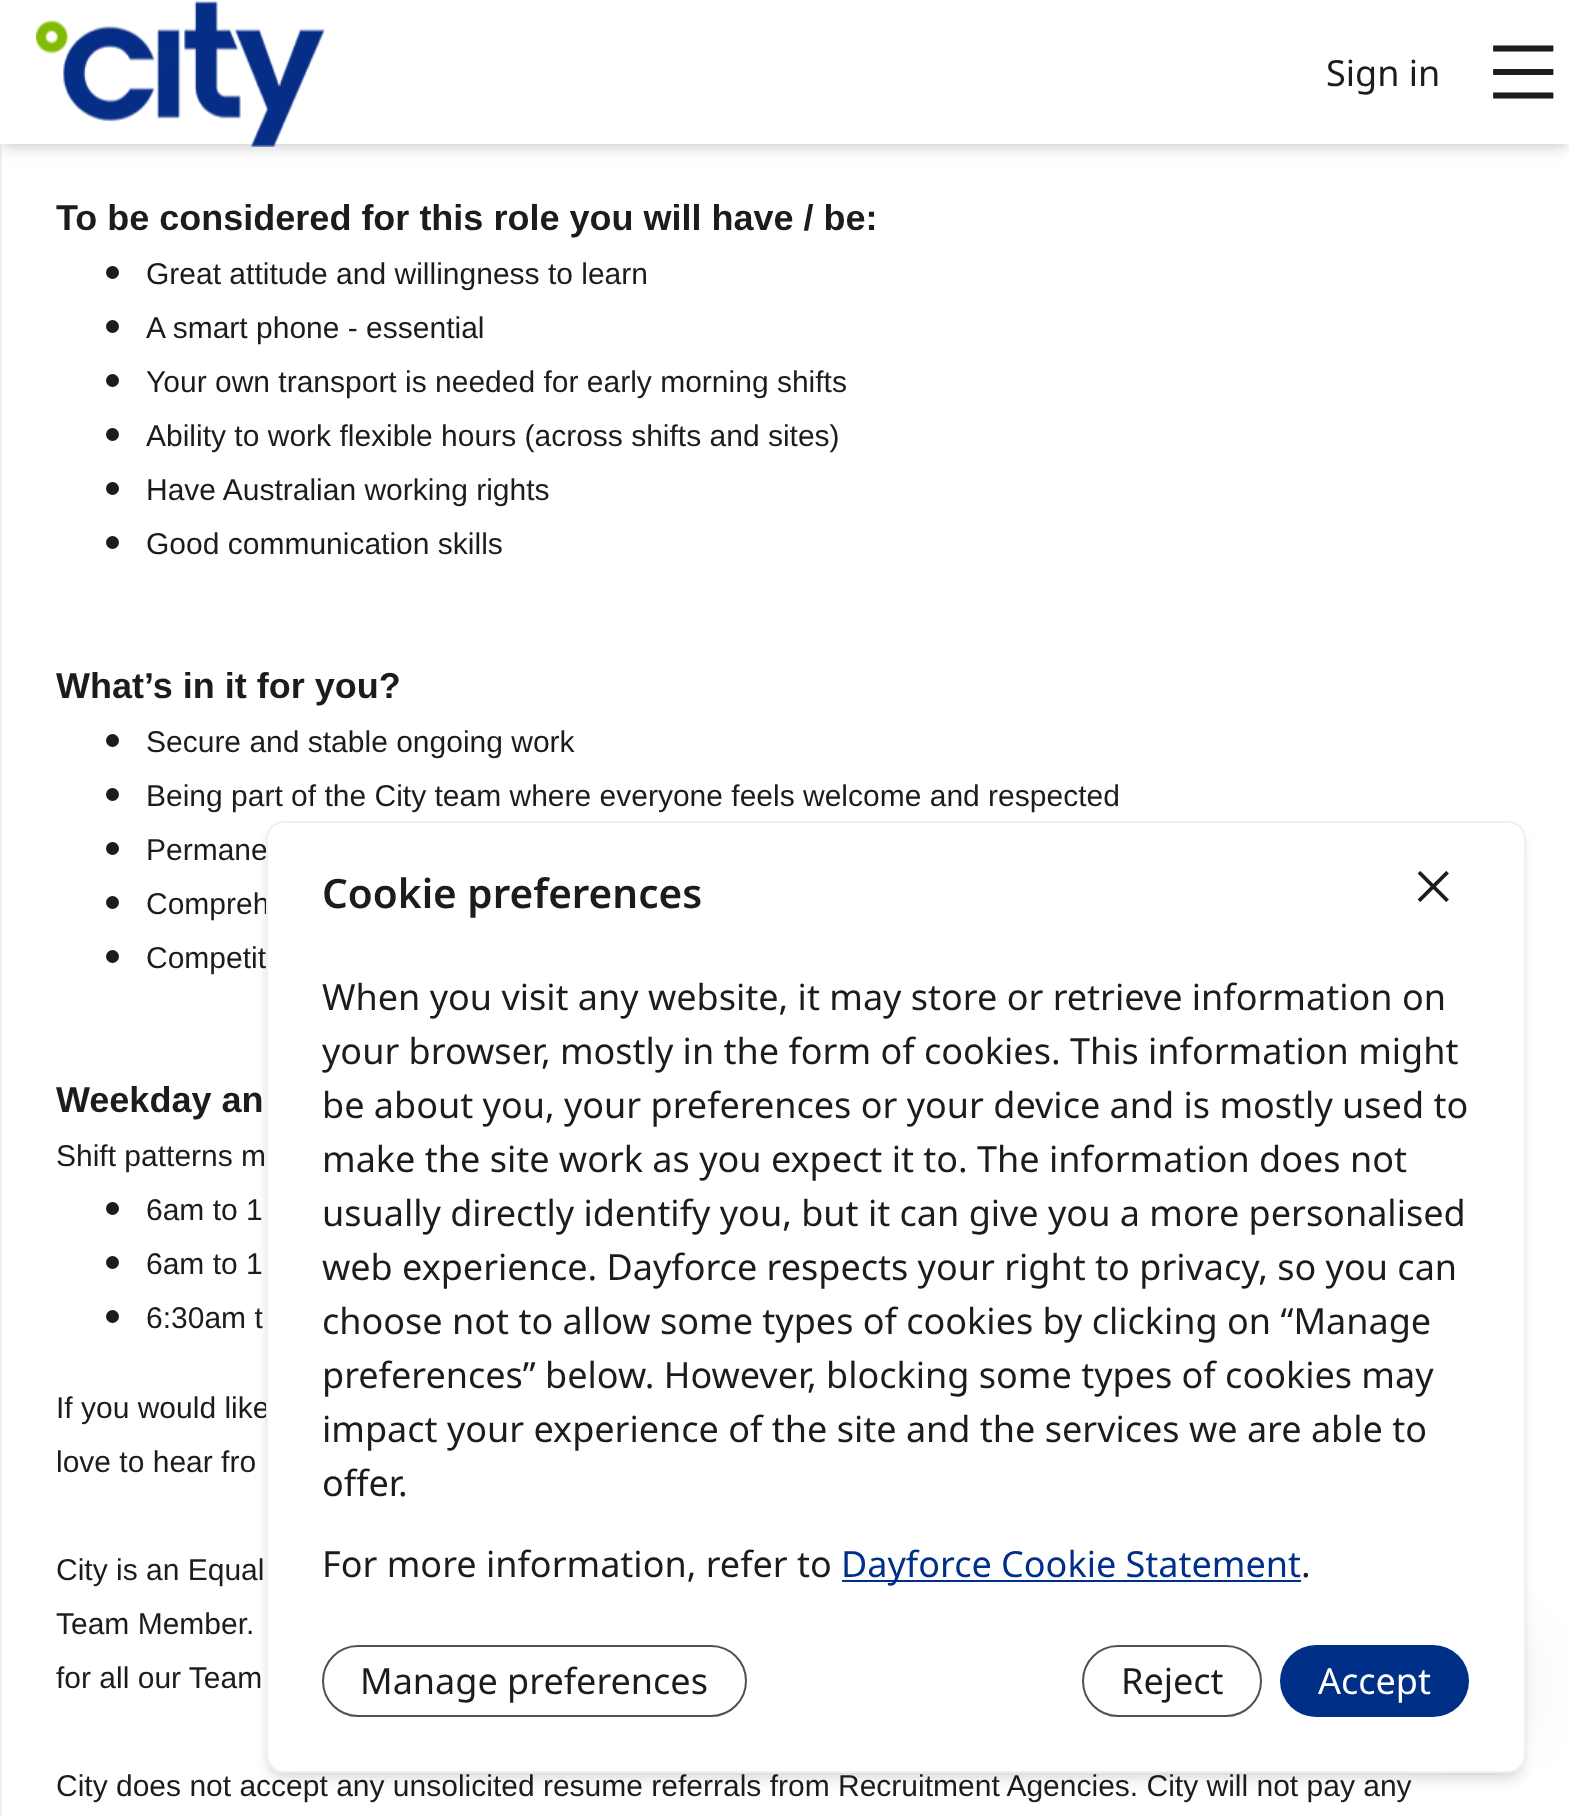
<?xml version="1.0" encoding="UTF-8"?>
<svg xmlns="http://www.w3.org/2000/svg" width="1569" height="1816">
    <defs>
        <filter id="blur1" x="-50%" y="-200%" width="200%" height="500%"><feGaussianBlur stdDeviation="4.5"/></filter>
        <filter id="blur2" x="-50%" y="-200%" width="200%" height="500%"><feGaussianBlur stdDeviation="7"/></filter>
        <filter id="blur3" x="-50%" y="-200%" width="200%" height="500%"><feGaussianBlur stdDeviation="31.5"/></filter>
    </defs>
    <rect width="100%" height="100%" fill="#FFFFFF"/>
    <rect x="1" y="-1" width="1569" height="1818" fill="none" stroke="#F0F0F0" stroke-width="2"/>
    <rect x="5" y="9" width="1561" height="135" fill="#000000" fill-opacity="0.1" filter="url(#blur1)"/>
    <rect x="2" y="11" width="1566" height="140" fill="#000000" fill-opacity="0.1" filter="url(#blur2)"/>
    <rect x="0" y="0" width="1569" height="144" fill="#FFFFFF"/>
    <image x="36" y="1" width="288" height="146" href="img_01.png"/>
    <text x="1326" y="86" font-family="Noto Sans" font-size="36" fill="#1C1C1E">Sign in</text>
    <image x="1493" y="45" width="61" height="54" href="img_02.png"/>
    <text x="56" y="230" font-family="Liberation Sans" font-size="36" font-weight="700" fill="#1C1C1E">To be considered for this role you will have / be:</text>
    <circle cx="112.5" cy="272.5" r="6.5" fill="#1C1C1E"/>
    <text x="146" y="284" font-family="Liberation Sans" font-size="30" fill="#1C1C1E">Great attitude and willingness to learn</text>
    <circle cx="112.5" cy="326.5" r="6.5" fill="#1C1C1E"/>
    <text x="146" y="338" font-family="Liberation Sans" font-size="30" fill="#1C1C1E">A smart phone - essential</text>
    <circle cx="112.5" cy="380.5" r="6.5" fill="#1C1C1E"/>
    <text x="146" y="392" font-family="Liberation Sans" font-size="30" fill="#1C1C1E">Your own transport is needed for early morning shifts</text>
    <circle cx="112.5" cy="434.5" r="6.5" fill="#1C1C1E"/>
    <text x="146" y="446" font-family="Liberation Sans" font-size="30" fill="#1C1C1E">Ability to work flexible hours (across shifts and sites)</text>
    <circle cx="112.5" cy="488.5" r="6.5" fill="#1C1C1E"/>
    <text x="146" y="500" font-family="Liberation Sans" font-size="30" fill="#1C1C1E">Have Australian working rights</text>
    <circle cx="112.5" cy="542.5" r="6.5" fill="#1C1C1E"/>
    <text x="146" y="554" font-family="Liberation Sans" font-size="30" fill="#1C1C1E">Good communication skills</text>
    <text x="56" y="698" font-family="Liberation Sans" font-size="36" font-weight="700" fill="#1C1C1E">What’s in it for you?</text>
    <circle cx="112.5" cy="740.5" r="6.5" fill="#1C1C1E"/>
    <text x="146" y="752" font-family="Liberation Sans" font-size="30" fill="#1C1C1E">Secure and stable ongoing work</text>
    <circle cx="112.5" cy="794.5" r="6.5" fill="#1C1C1E"/>
    <text x="146" y="806" font-family="Liberation Sans" font-size="30" fill="#1C1C1E">Being part of the City team where everyone feels welcome and respected</text>
    <circle cx="112.5" cy="848.5" r="6.5" fill="#1C1C1E"/>
    <text x="146" y="860" font-family="Liberation Sans" font-size="30" fill="#1C1C1E">Permane</text>
    <circle cx="112.5" cy="902.5" r="6.5" fill="#1C1C1E"/>
    <text x="146" y="914" font-family="Liberation Sans" font-size="30" fill="#1C1C1E">Compreh</text>
    <circle cx="112.5" cy="956.5" r="6.5" fill="#1C1C1E"/>
    <text x="146" y="968" font-family="Liberation Sans" font-size="30" fill="#1C1C1E">Competit</text>
    <text x="56" y="1112" font-family="Liberation Sans" font-size="36" font-weight="700" fill="#1C1C1E">Weekday an</text>
    <text x="56" y="1166" font-family="Liberation Sans" font-size="30" fill="#1C1C1E">Shift patterns m</text>
    <circle cx="112.5" cy="1208.5" r="6.5" fill="#1C1C1E"/>
    <text x="146" y="1220" font-family="Liberation Sans" font-size="30" fill="#1C1C1E">6am to 1</text>
    <circle cx="112.5" cy="1262.5" r="6.5" fill="#1C1C1E"/>
    <text x="146" y="1274" font-family="Liberation Sans" font-size="30" fill="#1C1C1E">6am to 1</text>
    <circle cx="112.5" cy="1316.5" r="6.5" fill="#1C1C1E"/>
    <text x="146" y="1328" font-family="Liberation Sans" font-size="30" fill="#1C1C1E">6:30am t</text>
    <text font-family="Liberation Sans" font-size="30" fill="#1C1C1E">
        <tspan x="56" y="1418">If you would like</tspan>
        <tspan x="56" y="1472">love to hear fro</tspan>
    </text>
    <text font-family="Liberation Sans" font-size="30" fill="#1C1C1E">
        <tspan x="56" y="1580">City is an Equal</tspan>
        <tspan x="56" y="1634">Team Member.</tspan>
        <tspan x="56" y="1688">for all our Team</tspan>
    </text>
    <text x="56" y="1796" font-family="Liberation Sans" font-size="30" fill="#1C1C1E">City does not accept any unsolicited resume referrals from Recruitment Agencies. City will not pay any</text>
    <rect x="1409" y="1622" width="126" height="126" rx="63" fill="#000000" fill-opacity="0.05" filter="url(#blur3)"/>
    <rect x="270" y="830" width="1251" height="943" rx="14" fill="#000000" fill-opacity="0.1" filter="url(#blur1)"/>
    <rect x="268" y="833" width="1255" height="947" rx="16" fill="#000000" fill-opacity="0.1" filter="url(#blur2)"/>
    <rect x="267" y="822" width="1258" height="950" rx="17" fill="#FFFFFF" stroke="#F0F0F0" stroke-width="2"/>
    <text x="322" y="908" font-family="Noto Sans" font-size="40.5" font-weight="600" fill="#1C1C1E">Cookie preferences</text>
    <image x="1417" y="871" width="32" height="31" href="img_03.png"/>
    <text font-family="Noto Sans" font-size="36" fill="#1C1C1E">
        <tspan x="322" y="1010">When you visit any website, it may store or retrieve information on</tspan>
        <tspan x="322" y="1064">your browser, mostly in the form of cookies. This information might</tspan>
        <tspan x="322" y="1118">be about you, your preferences or your device and is mostly used to</tspan>
        <tspan x="322" y="1172">make the site work as you expect it to. The information does not</tspan>
        <tspan x="322" y="1226">usually directly identify you, but it can give you a more personalised</tspan>
        <tspan x="322" y="1280">web experience. Dayforce respects your right to privacy, so you can</tspan>
        <tspan x="322" y="1334">choose not to allow some types of cookies by clicking on “Manage</tspan>
        <tspan x="322" y="1388">preferences” below. However, blocking some types of cookies may</tspan>
        <tspan x="322" y="1442">impact your experience of the site and the services we are able to</tspan>
        <tspan x="322" y="1496">offer.</tspan>
    </text>
    <text x="322" y="1577" font-family="Noto Sans" font-size="36" fill="#1C1C1E">For more information, refer to</text>
    <rect x="842" y="1580" width="459" height="2" fill="#002F87"/>
    <text x="841" y="1577" font-family="Noto Sans" font-size="36" fill="#002F87">Dayforce Cookie Statement</text>
    <text x="1301" y="1577" font-family="Noto Sans" font-size="36" fill="#1C1C1E">.</text>
    <rect x="323" y="1646" width="423" height="70" rx="35" fill="none" stroke="#505050" stroke-width="2"/>
    <text x="360" y="1694" font-family="Noto Sans" font-size="36" fill="#1C1C1E">Manage preferences</text>
    <rect x="1083" y="1646" width="178" height="70" rx="35" fill="none" stroke="#505050" stroke-width="2"/>
    <text x="1121" y="1694" font-family="Noto Sans" font-size="36" fill="#1C1C1E">Reject</text>
    <rect x="1280" y="1645" width="189" height="72" rx="36" fill="#002F87"/>
    <text x="1318" y="1694" font-family="Noto Sans" font-size="36" fill="#FFFFFF">Accept</text>
</svg>
